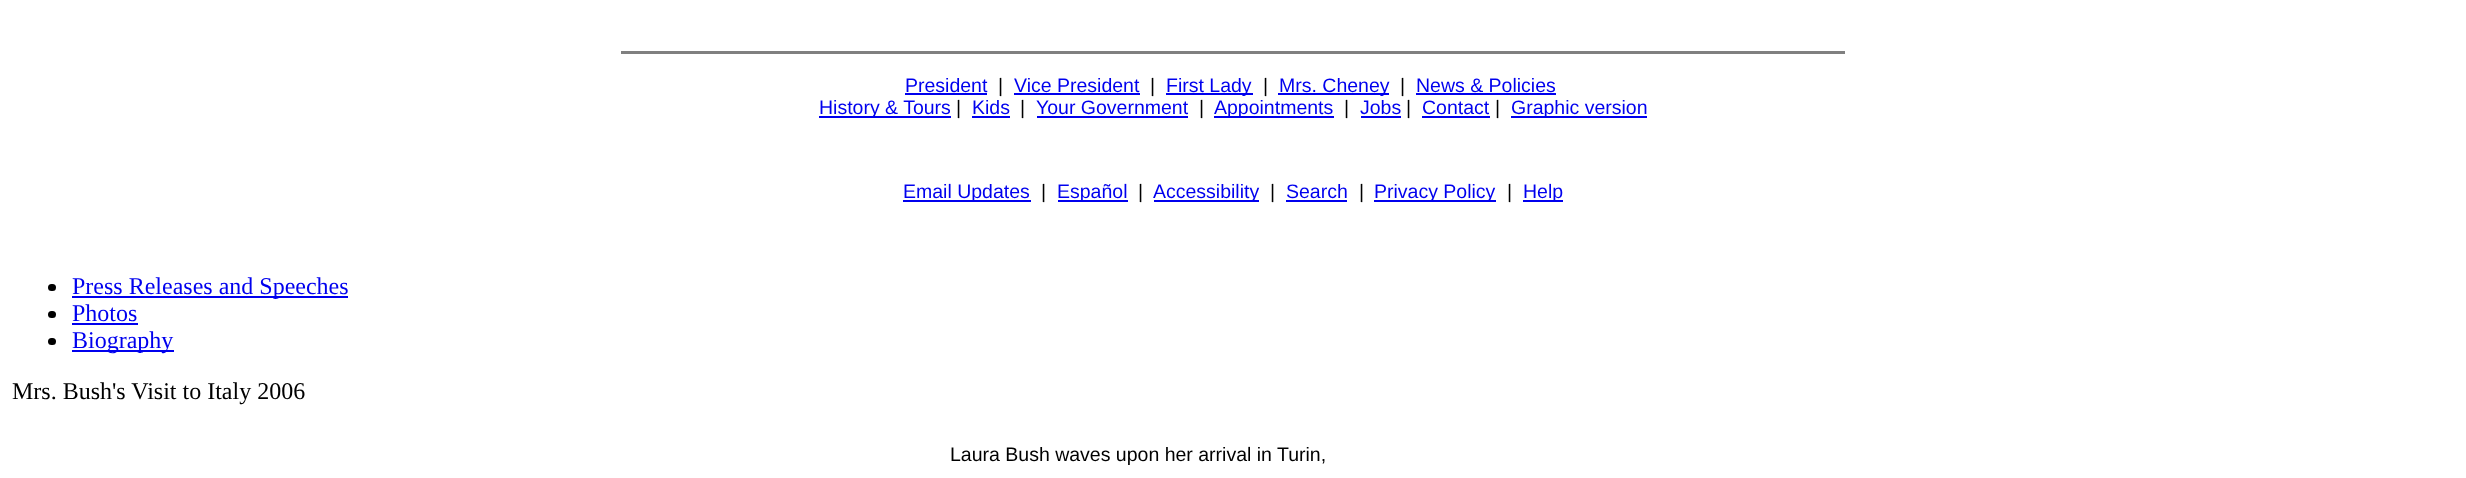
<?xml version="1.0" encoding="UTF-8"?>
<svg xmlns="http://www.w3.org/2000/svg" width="2466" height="478">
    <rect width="100%" height="100%" fill="#FFFFFF"/>
    <rect x="621" y="51" width="1224" height="3" fill="#808080"/>
    <text x="905" y="92" font-family="Liberation Sans" font-size="19.5" fill="#0000EE">President</text>
    <rect x="905" y="93" width="82" height="2" fill="#0000EE"/>
    <text x="998" y="92" font-family="Liberation Sans" font-size="19.5" fill="#000000">|</text>
    <text x="1014" y="92" font-family="Liberation Sans" font-size="19.5" fill="#0000EE">Vice President</text>
    <rect x="1014" y="93" width="126" height="2" fill="#0000EE"/>
    <text x="1150" y="92" font-family="Liberation Sans" font-size="19.5" fill="#000000">|</text>
    <rect x="1166" y="93" width="87" height="2" fill="#0000EE"/>
    <text x="1166" y="92" font-family="Liberation Sans" font-size="19.5" fill="#0000EE">First Lady</text>
    <text x="1263" y="92" font-family="Liberation Sans" font-size="19.5" fill="#000000">|</text>
    <rect x="1278" y="93" width="111" height="2" fill="#0000EE"/>
    <text x="1279" y="92" font-family="Liberation Sans" font-size="19.5" fill="#0000EE">Mrs. Cheney</text>
    <text x="1400" y="92" font-family="Liberation Sans" font-size="19.5" fill="#000000">|</text>
    <text x="1416" y="92" font-family="Liberation Sans" font-size="19.5" fill="#0000EE">News &amp; Policies</text>
    <rect x="1416" y="93" width="140" height="2" fill="#0000EE"/>
    <rect x="819" y="116" width="132" height="2" fill="#0000EE"/>
    <text x="819" y="114" font-family="Liberation Sans" font-size="19.5" fill="#0000EE">History &amp; Tours</text>
    <text x="956" y="114" font-family="Liberation Sans" font-size="19.5" fill="#000000">|</text>
    <text x="972" y="114" font-family="Liberation Sans" font-size="19.5" fill="#0000EE">Kids</text>
    <rect x="972" y="116" width="38" height="2" fill="#0000EE"/>
    <text x="1020" y="114" font-family="Liberation Sans" font-size="19.5" fill="#000000">|</text>
    <text x="1036" y="114" font-family="Liberation Sans" font-size="19.5" fill="#0000EE">Your Government</text>
    <rect x="1037" y="116" width="151" height="2" fill="#0000EE"/>
    <text x="1199" y="114" font-family="Liberation Sans" font-size="19.5" fill="#000000">|</text>
    <rect x="1214" y="116" width="120" height="2" fill="#0000EE"/>
    <text x="1214" y="114" font-family="Liberation Sans" font-size="19.5" fill="#0000EE">Appointments</text>
    <text x="1344" y="114" font-family="Liberation Sans" font-size="19.5" fill="#000000">|</text>
    <text x="1360" y="114" font-family="Liberation Sans" font-size="19.5" fill="#0000EE">Jobs</text>
    <rect x="1361" y="116" width="40" height="2" fill="#0000EE"/>
    <text x="1406" y="114" font-family="Liberation Sans" font-size="19.5" fill="#000000">|</text>
    <text x="1422" y="114" font-family="Liberation Sans" font-size="19.5" fill="#0000EE">Contact</text>
    <rect x="1422" y="116" width="68" height="2" fill="#0000EE"/>
    <text x="1495" y="114" font-family="Liberation Sans" font-size="19.5" fill="#000000">|</text>
    <rect x="1511" y="116" width="136" height="2" fill="#0000EE"/>
    <text x="1511" y="114" font-family="Liberation Sans" font-size="19.5" fill="#0000EE">Graphic version</text>
    <rect x="903" y="200" width="128" height="2" fill="#0000EE"/>
    <text x="903" y="198" font-family="Liberation Sans" font-size="19.5" fill="#0000EE">Email Updates</text>
    <text x="1041" y="198" font-family="Liberation Sans" font-size="19.5" fill="#000000">|</text>
    <rect x="1058" y="200" width="70" height="2" fill="#0000EE"/>
    <text x="1057" y="198" font-family="Liberation Sans" font-size="19.5" fill="#0000EE">Español</text>
    <text x="1138" y="198" font-family="Liberation Sans" font-size="19.5" fill="#000000">|</text>
    <rect x="1154" y="200" width="105" height="2" fill="#0000EE"/>
    <text x="1153" y="198" font-family="Liberation Sans" font-size="19.5" fill="#0000EE">Accessibility</text>
    <text x="1270" y="198" font-family="Liberation Sans" font-size="19.5" fill="#000000">|</text>
    <text x="1286" y="198" font-family="Liberation Sans" font-size="19.5" fill="#0000EE">Search</text>
    <rect x="1286" y="200" width="61" height="2" fill="#0000EE"/>
    <text x="1359" y="198" font-family="Liberation Sans" font-size="19.5" fill="#000000">|</text>
    <rect x="1374" y="200" width="122" height="2" fill="#0000EE"/>
    <text x="1374" y="198" font-family="Liberation Sans" font-size="19.5" fill="#0000EE">Privacy Policy</text>
    <text x="1507" y="198" font-family="Liberation Sans" font-size="19.5" fill="#000000">|</text>
    <rect x="1523" y="200" width="40" height="2" fill="#0000EE"/>
    <text x="1523" y="198" font-family="Liberation Sans" font-size="19.5" fill="#0000EE">Help</text>
    <rect x="48" y="284" width="8" height="7" rx="3.5" fill="#000000"/>
    <rect x="72" y="296" width="276" height="2" fill="#0000EE"/>
    <text x="72" y="294" font-family="Liberation Serif" font-size="24" fill="#0000EE">Press Releases and Speeches</text>
    <rect x="48" y="311" width="8" height="7" rx="3.5" fill="#000000"/>
    <text x="72" y="321" font-family="Liberation Serif" font-size="24" fill="#0000EE">Photos</text>
    <rect x="72" y="323" width="66" height="2" fill="#0000EE"/>
    <rect x="48" y="338" width="8" height="7" rx="3.5" fill="#000000"/>
    <rect x="72" y="350" width="102" height="2" fill="#0000EE"/>
    <text x="72" y="348" font-family="Liberation Serif" font-size="24" fill="#0000EE">Biography</text>
    <text x="12" y="399" font-family="Liberation Serif" font-size="24" fill="#000000">Mrs. Bush's Visit to Italy 2006</text>
    <text x="950" y="461" font-family="Liberation Sans" font-size="19.5" fill="#000000">Laura Bush waves upon her arrival in Turin,</text>
</svg>
